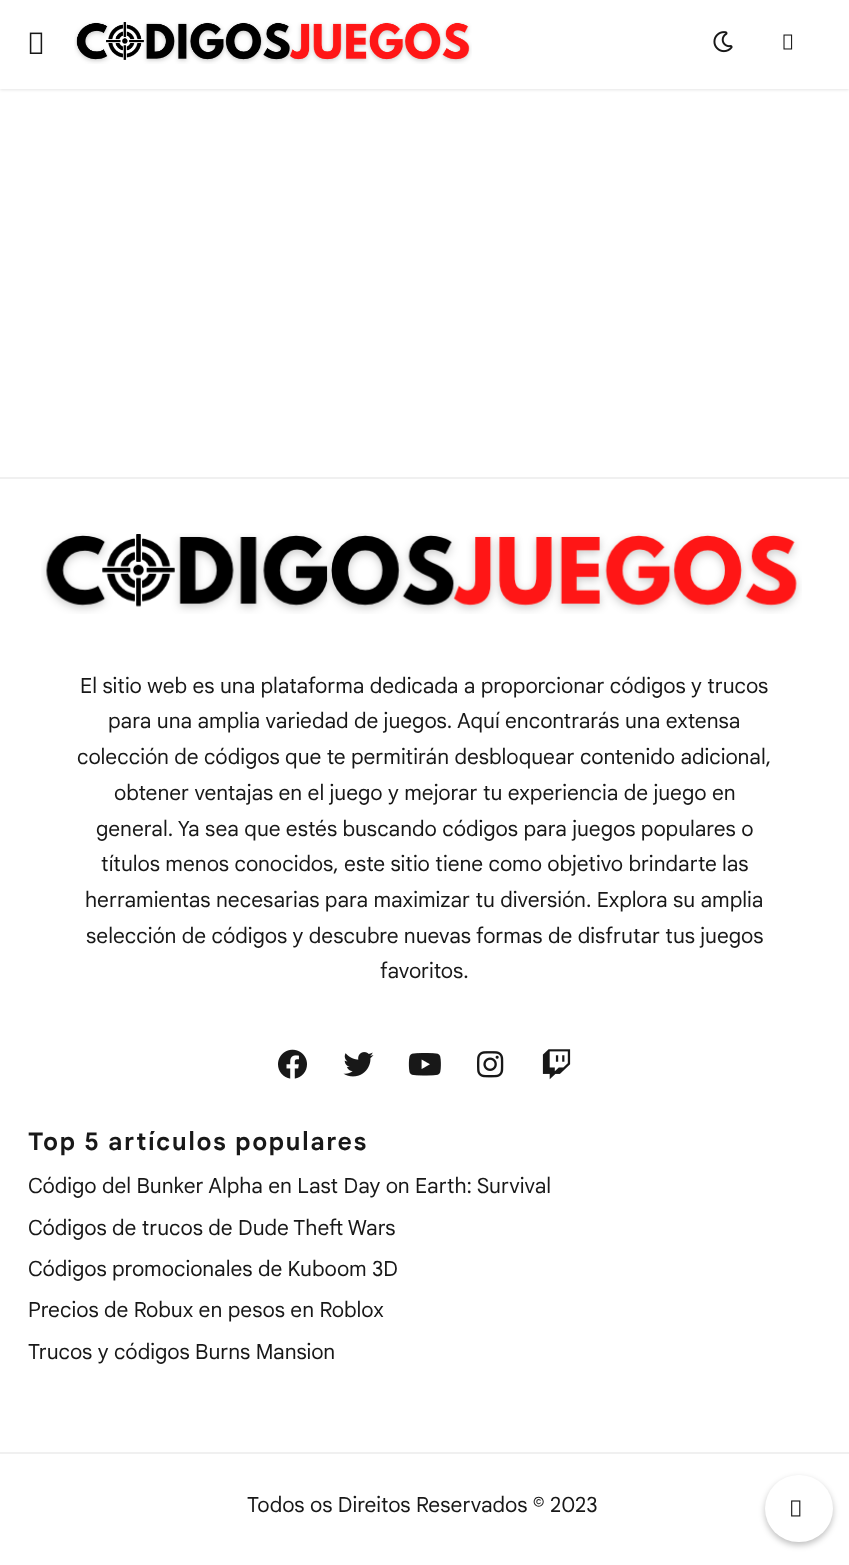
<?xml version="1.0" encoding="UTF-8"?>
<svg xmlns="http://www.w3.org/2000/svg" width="849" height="1565">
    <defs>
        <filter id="blur1" x="-50%" y="-200%" width="200%" height="500%"><feGaussianBlur stdDeviation="1.5"/></filter>
        <filter id="blur2" x="-50%" y="-200%" width="200%" height="500%"><feGaussianBlur stdDeviation="3"/></filter>
    </defs>
    <rect width="100%" height="100%" fill="#FFFFFF"/>
    <rect x="0" y="2" width="849" height="88" fill="#000000" fill-opacity="0.1" filter="url(#blur1)"/>
    <rect x="0" y="0" width="849" height="89" fill="#FFFFFF"/>
    <image x="29" y="32" width="14" height="22" href="img_01.png"/>
    <image x="74" y="22" width="398" height="42" href="img_02.png"/>
    <image x="713" y="31" width="20" height="22" href="img_03.png"/>
    <image x="783" y="34" width="10" height="16" href="img_04.png"/>
    <rect x="0" y="477" width="849" height="2" fill="#F0F0F0"/>
    <image x="41" y="533" width="761" height="81" href="img_05.png"/>
    <text x="80" y="693" font-family="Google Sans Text" font-size="21" fill="#181818">El sitio web es una plataforma dedicada a proporcionar códigos y trucos</text>
    <text x="108" y="728" font-family="Google Sans Text" font-size="21" fill="#181818">para una amplia variedad de juegos. Aquí encontrarás una extensa</text>
    <text x="77" y="764" font-family="Google Sans Text" font-size="21" fill="#181818">colección de códigos que te permitirán desbloquear contenido adicional,</text>
    <text x="114" y="800" font-family="Google Sans Text" font-size="21" fill="#181818">obtener ventajas en el juego y mejorar tu experiencia de juego en</text>
    <text x="96" y="836" font-family="Google Sans Text" font-size="21" fill="#181818">general. Ya sea que estés buscando códigos para juegos populares o</text>
    <text x="101" y="871" font-family="Google Sans Text" font-size="21" fill="#181818">títulos menos conocidos, este sitio tiene como objetivo brindarte las</text>
    <text x="85" y="907" font-family="Google Sans Text" font-size="21" fill="#181818">herramientas necesarias para maximizar tu diversión. Explora su amplia</text>
    <text x="86" y="943" font-family="Google Sans Text" font-size="21" fill="#181818">selección de códigos y descubre nuevas formas de disfrutar tus juegos</text>
    <text x="380" y="978" font-family="Google Sans Text" font-size="21" fill="#181818">favoritos.</text>
    <image x="278" y="1049" width="29" height="30" href="img_06.png"/>
    <image x="343" y="1052" width="31" height="25" href="img_07.png"/>
    <image x="408" y="1053" width="33" height="23" href="img_08.png"/>
    <image x="477" y="1051" width="27" height="27" href="img_09.png"/>
    <image x="542" y="1049" width="29" height="31" href="img_10.png"/>
    <text x="28" y="1150" font-family="Google Sans Text" font-size="24.5" font-weight="700" letter-spacing="1.5" fill="#181818">Top 5 artículos populares</text>
    <text x="28" y="1193" font-family="Google Sans Text" font-size="21" fill="#181818">Código del Bunker Alpha en Last Day on Earth: Survival</text>
    <text font-family="Google Sans Text" font-size="21" fill="#181818">
        <tspan x="28" y="1235">Códigos de trucos de Dude Theft Wars</tspan>
        <tspan x="28" y="1276">Códigos promocionales de Kuboom 3D</tspan>
        <tspan x="28" y="1317">Precios de Robux en pesos en Roblox</tspan>
    </text>
    <text x="28" y="1359" font-family="Google Sans Text" font-size="21" fill="#181818">Trucos y códigos Burns Mansion</text>
    <rect x="0" y="1452" width="849" height="2" fill="#F0F0F0"/>
    <text x="247" y="1512" font-family="Google Sans Text" font-size="21" fill="#181818">Todos os Direitos Reservados © 2023</text>
    <rect x="765" y="1478" width="68" height="67" rx="33.5" fill="#000000" fill-opacity="0.25" filter="url(#blur2)"/>
    <rect x="765" y="1475" width="68" height="67" rx="33.5" fill="#FFFFFF"/>
    <image x="791" y="1500" width="10" height="17" href="img_11.png"/>
</svg>
